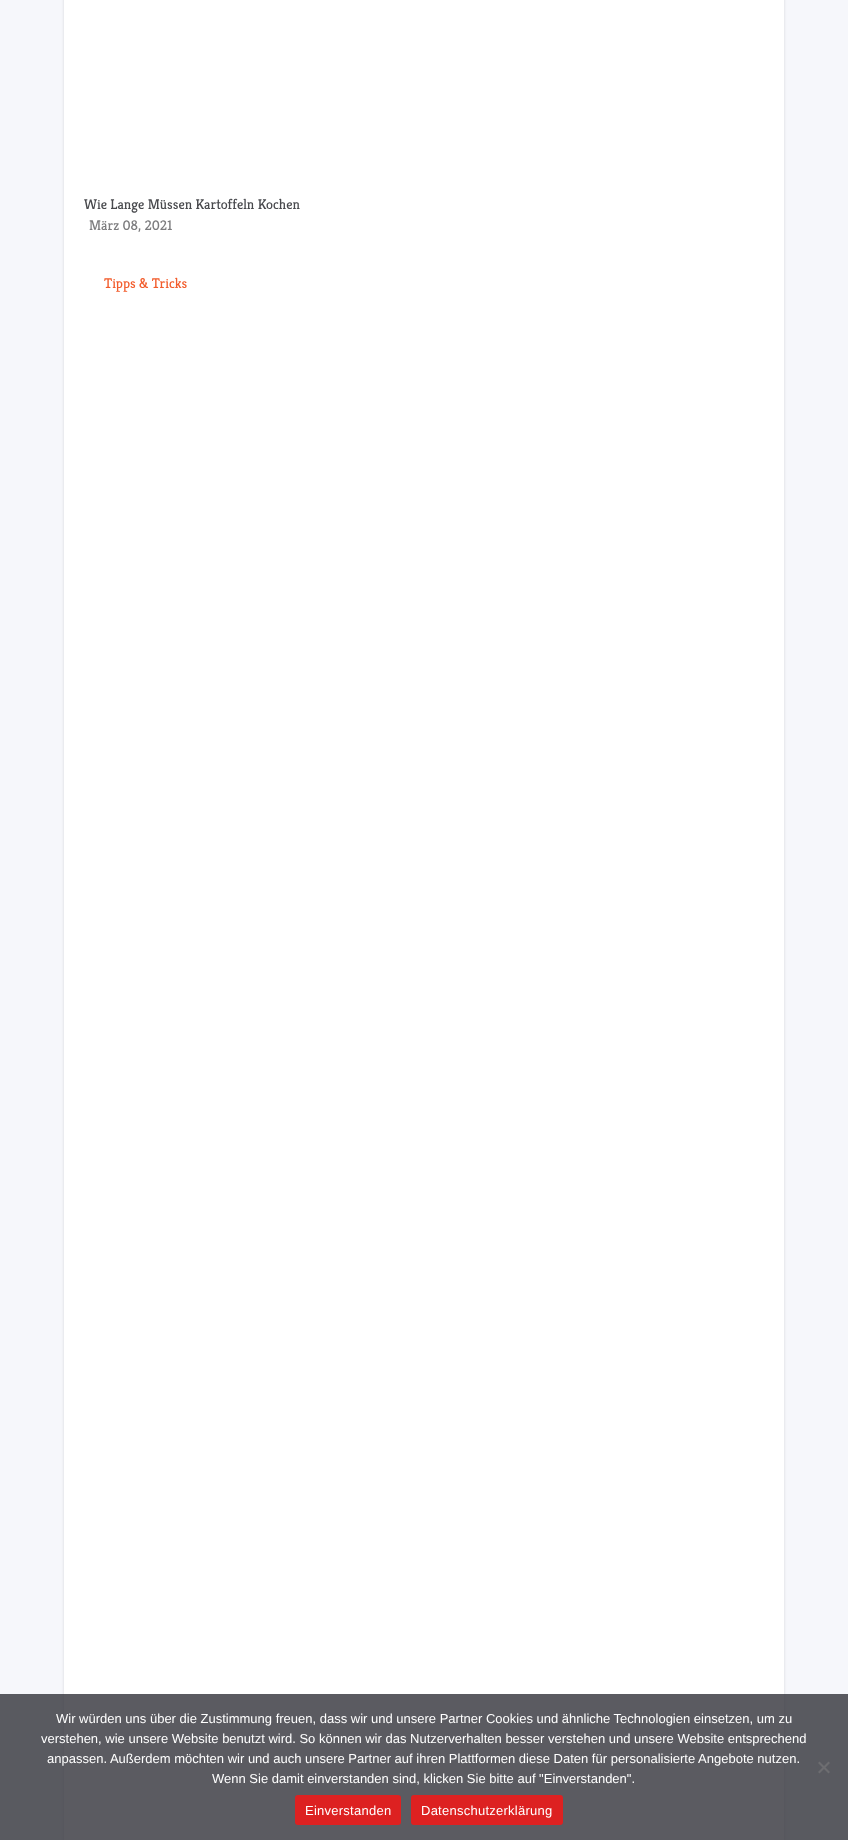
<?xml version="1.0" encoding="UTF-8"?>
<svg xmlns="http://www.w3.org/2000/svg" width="848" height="1840">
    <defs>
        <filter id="blur1" x="-50%" y="-200%" width="200%" height="500%"><feGaussianBlur stdDeviation="1.5"/></filter>
    </defs>
    <rect width="100%" height="100%" fill="#F6F7FB"/>
    <rect x="64" y="-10" width="720" height="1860" rx="5" fill="#000000" fill-opacity="0.13" filter="url(#blur1)"/>
    <rect x="64" y="0" width="720" height="1840" fill="#FFFFFF"/>
    <text x="84" y="209" font-family="Kreon" font-size="14" font-weight="300" fill="#48494D">Wie Lange Müssen Kartoffeln Kochen</text>
    <text x="89" y="230" font-family="Kreon" font-size="14" font-weight="300" fill="#7C7C7E">März 08, 2021</text>
    <text x="104" y="288" font-family="Kreon" font-size="14" font-weight="300" fill="#F25C2C">Tipps &amp; Tricks</text>
    <rect x="0" y="1694" width="848" height="146" fill="#32323A" fill-opacity="0.8"/>
    <text x="56" y="1723" font-family="Liberation Sans" font-size="13" fill="#FFFFFF">Wir würden uns über die Zustimmung freuen, dass wir und unsere Partner Cookies und ähnliche Technologien einsetzen, um zu</text>
    <text x="41" y="1743" font-family="Liberation Sans" font-size="13" fill="#FFFFFF">verstehen, wie unsere Website benutzt wird. So können wir das Nutzerverhalten besser verstehen und unsere Website entsprechend</text>
    <text x="47" y="1763" font-family="Liberation Sans" font-size="13" fill="#FFFFFF">anpassen. Außerdem möchten wir und auch unsere Partner auf ihren Plattformen diese Daten für personalisierte Angebote nutzen.</text>
    <text x="212" y="1783" font-family="Liberation Sans" font-size="13" fill="#FFFFFF">Wenn Sie damit einverstanden sind, klicken Sie bitte auf "Einverstanden".</text>
    <path d="M 828.5 1761.5 L 830 1763 L 819.5 1773.5 L 818 1772 Z" fill="#6D6D70"/>
    <path d="M 818 1763 L 819.5 1761.5 L 830 1772 L 828.5 1773.5 Z" fill="#6D6D70"/>
    <rect x="295" y="1795" width="106" height="30" rx="3" fill="#DD2121"/>
    <text x="305" y="1815" font-family="Liberation Sans" font-size="13" letter-spacing="0.25" fill="#FFFFFF">Einverstanden</text>
    <rect x="411" y="1795" width="152" height="30" rx="3" fill="#DD2121"/>
    <text x="421" y="1815" font-family="Liberation Sans" font-size="13" letter-spacing="0.25" fill="#FFFFFF">Datenschutzerklärung</text>
</svg>
